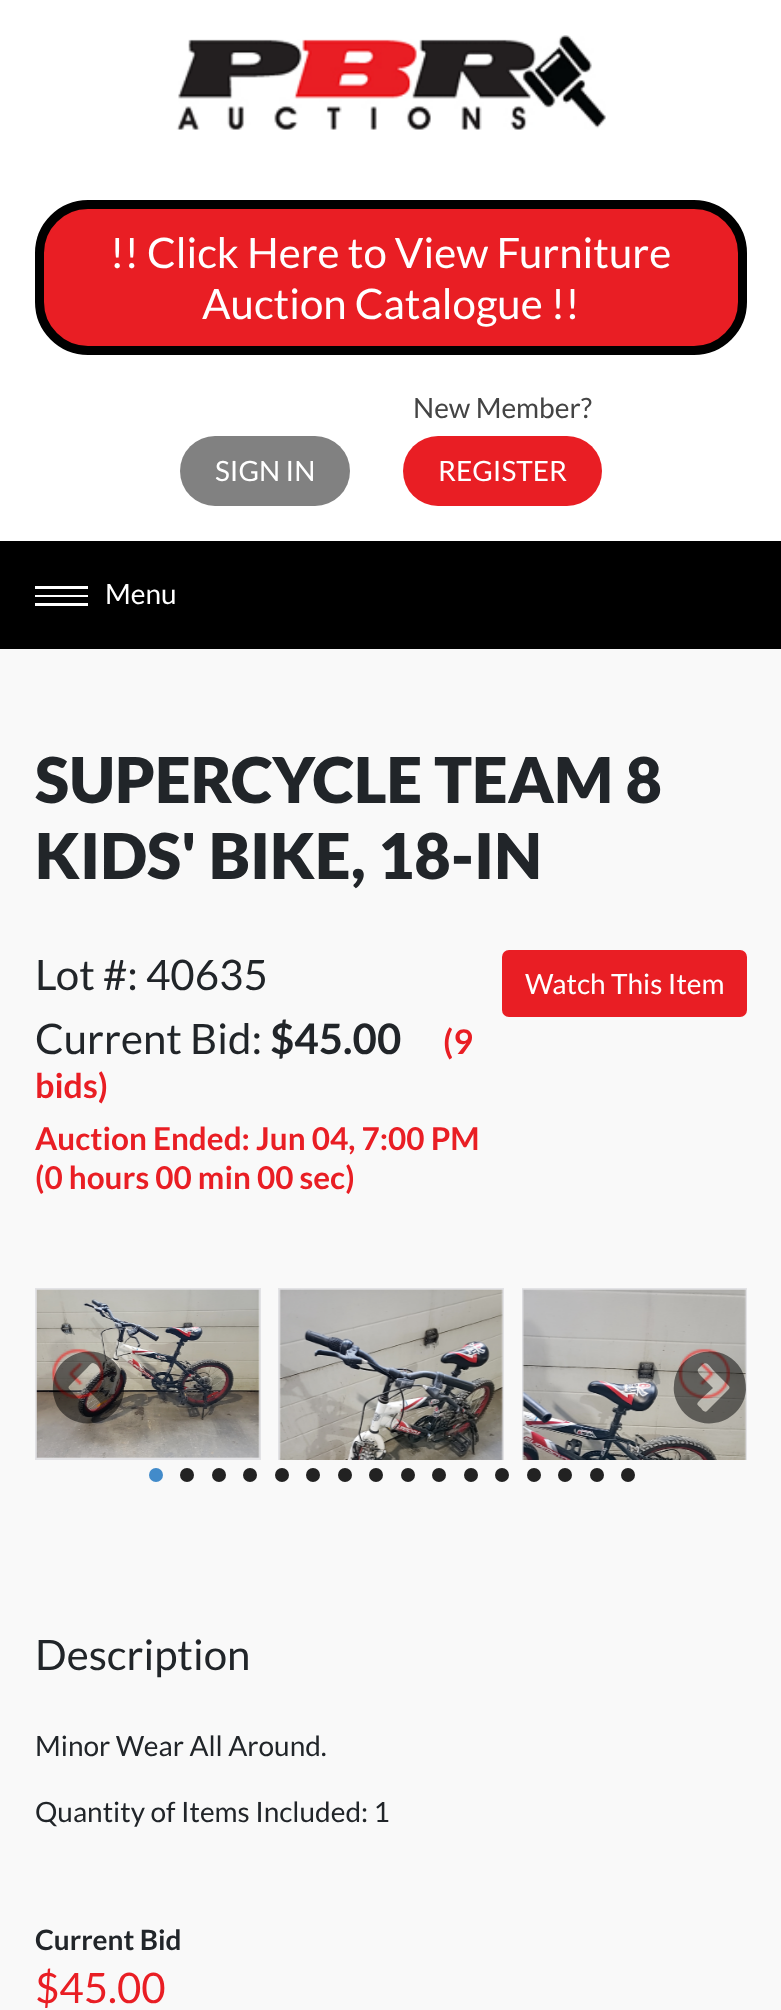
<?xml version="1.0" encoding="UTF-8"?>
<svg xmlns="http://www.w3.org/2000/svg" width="781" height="2010">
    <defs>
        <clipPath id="clip1"><rect x="35" y="1288" width="712" height="172"/></clipPath>
    </defs>
    <rect width="100%" height="100%" fill="#F9F9F9"/>
    <rect x="0" y="0" width="781" height="541" fill="#FFFFFF"/>
    <image x="176" y="35" width="430" height="95" href="img_01.png"/>
    <rect x="39.5" y="204.5" width="703" height="146" rx="48.5" fill="#E91E24" stroke="#000000" stroke-width="9"/>
    <text x="110" y="268" font-family="Lato" font-size="42" fill="#FFFFFF">!! Click Here to View Furniture</text>
    <text x="202" y="319" font-family="Lato" font-size="42" fill="#FFFFFF">Auction Catalogue !!</text>
    <rect x="180" y="436" width="170" height="70" rx="35" fill="#818181"/>
    <text x="215" y="481" font-family="Lato" font-size="28" fill="#FFFFFF">SIGN IN</text>
    <text x="413" y="418" font-family="Lato" font-size="28" fill="#444444">New Member?</text>
    <rect x="403" y="436" width="199" height="70" rx="35" fill="#E91E24"/>
    <text x="438" y="481" font-family="Lato" font-size="28" fill="#FFFFFF">REGISTER</text>
    <rect x="0" y="541" width="781" height="108" fill="#000000"/>
    <path d="M 35 606 V 603 H 88 V 606 Z M 35 597 V 595 H 88 V 597 Z M 35 589 V 586 H 88 V 589 Z" fill="#FFFFFF"/>
    <text x="105" y="604" font-family="Lato" font-size="28" fill="#FFFFFF">Menu</text>
    <text font-family="Lato" font-size="63" font-weight="900" fill="#212529">
        <tspan x="35" y="803">SUPERCYCLE TEAM 8</tspan>
        <tspan x="35" y="879">KIDS' BIKE, 18-IN</tspan>
    </text>
    <text x="35" y="990" font-family="Lato" font-size="42" fill="#212529">Lot #: 40635</text>
    <rect x="503" y="951" width="243" height="65" rx="6" fill="#E91E24" stroke="#E91E24" stroke-width="2"/>
    <text x="525" y="994" font-family="Lato" font-size="28" fill="#FFFFFF">Watch This Item</text>
    <text x="35" y="1054" font-family="Lato" font-size="42" fill="#212529">Current Bid:</text>
    <text x="270" y="1054" font-family="Lato" font-size="42" font-weight="700" fill="#212529">$45.00</text>
    <text x="443" y="1054" font-family="Lato" font-size="34" font-weight="700" fill="#E91E24">(9</text>
    <text x="35" y="1098" font-family="Lato" font-size="34" font-weight="700" fill="#E91E24">bids)</text>
    <text font-family="Lato" font-size="31.5" font-weight="700" fill="#E91E24">
        <tspan x="35" y="1150">Auction Ended: Jun 04, 7:00 PM</tspan>
        <tspan x="35" y="1189">(0 hours 00 min 00 sec)</tspan>
    </text>
    <rect x="36" y="1289" width="224" height="170" fill="none" stroke="#E2E2E5" stroke-width="2"/>
    <image x="36" y="1289" width="224" height="169" href="img_02.png"/>
    <g clip-path="url(#clip1)">
        <rect x="279" y="1289" width="224" height="299" fill="none" stroke="#E2E2E5" stroke-width="2"/>
    </g>
    <image x="279" y="1289" width="224" height="171" href="img_03.png"/>
    <g clip-path="url(#clip1)">
        <rect x="523" y="1289" width="223" height="299" fill="none" stroke="#E2E2E5" stroke-width="2"/>
    </g>
    <image x="522" y="1289" width="224" height="171" href="img_04.png"/>
    <image x="52" y="1348" width="52" height="51" href="img_05.png"/>
    <path d="M 95 1411 C 101 1405 103 1405 97 1399 L 86 1388 L 100 1373 C 102 1371 99 1368 98 1366 C 92 1361 92 1363 87 1368 L 73 1382 C 67 1388 67 1387 73 1393 L 87 1407 C 89 1409 92 1414 95 1411 Z M 120 1369 C 123 1376 125 1383 124 1390 C 122 1425 75 1436 57 1406 C 54 1399 52 1392 53 1385 C 55 1350 102 1339 120 1369 Z" fill="#000000" fill-opacity="0.5"/>
    <image x="678" y="1348" width="52" height="51" href="img_06.png"/>
    <path d="M 707 1411 L 725 1393 C 731 1387 731 1388 725 1382 L 714 1371 C 710 1367 707 1360 702 1365 C 697 1370 696 1370 701 1376 L 713 1388 L 701 1399 C 696 1404 696 1404 701 1408 C 702 1410 705 1413 707 1411 Z M 741 1369 C 745 1376 746 1383 746 1390 C 743 1425 696 1436 679 1406 C 675 1399 673 1392 674 1385 C 676 1350 723 1339 741 1369 Z" fill="#000000" fill-opacity="0.5"/>
    <circle cx="156" cy="1475" r="7" fill="#428BCA"/>
    <circle cx="187" cy="1475" r="7" fill="#222222"/>
    <circle cx="219" cy="1475" r="7" fill="#222222"/>
    <circle cx="250" cy="1475" r="7" fill="#222222"/>
    <circle cx="282" cy="1475" r="7" fill="#222222"/>
    <circle cx="313" cy="1475" r="7" fill="#222222"/>
    <circle cx="345" cy="1475" r="7" fill="#222222"/>
    <circle cx="376" cy="1475" r="7" fill="#222222"/>
    <circle cx="408" cy="1475" r="7" fill="#222222"/>
    <circle cx="439" cy="1475" r="7" fill="#222222"/>
    <circle cx="471" cy="1475" r="7" fill="#222222"/>
    <circle cx="502" cy="1475" r="7" fill="#222222"/>
    <circle cx="534" cy="1475" r="7" fill="#222222"/>
    <circle cx="565" cy="1475" r="7" fill="#222222"/>
    <circle cx="597" cy="1475" r="7" fill="#222222"/>
    <circle cx="628" cy="1475" r="7" fill="#222222"/>
    <text x="35" y="1670" font-family="Lato" font-size="42" fill="#212529">Description</text>
    <text x="35" y="1756" font-family="Lato" font-size="28" fill="#212529">Minor Wear All Around.</text>
    <text x="35" y="1822" font-family="Lato" font-size="28" fill="#212529">Quantity of Items Included: 1</text>
    <text x="35" y="1950" font-family="Lato" font-size="28" font-weight="700" fill="#212529">Current Bid</text>
    <text x="35" y="2003" font-family="Lato" font-size="42" fill="#E91E24">$45.00</text>
</svg>
